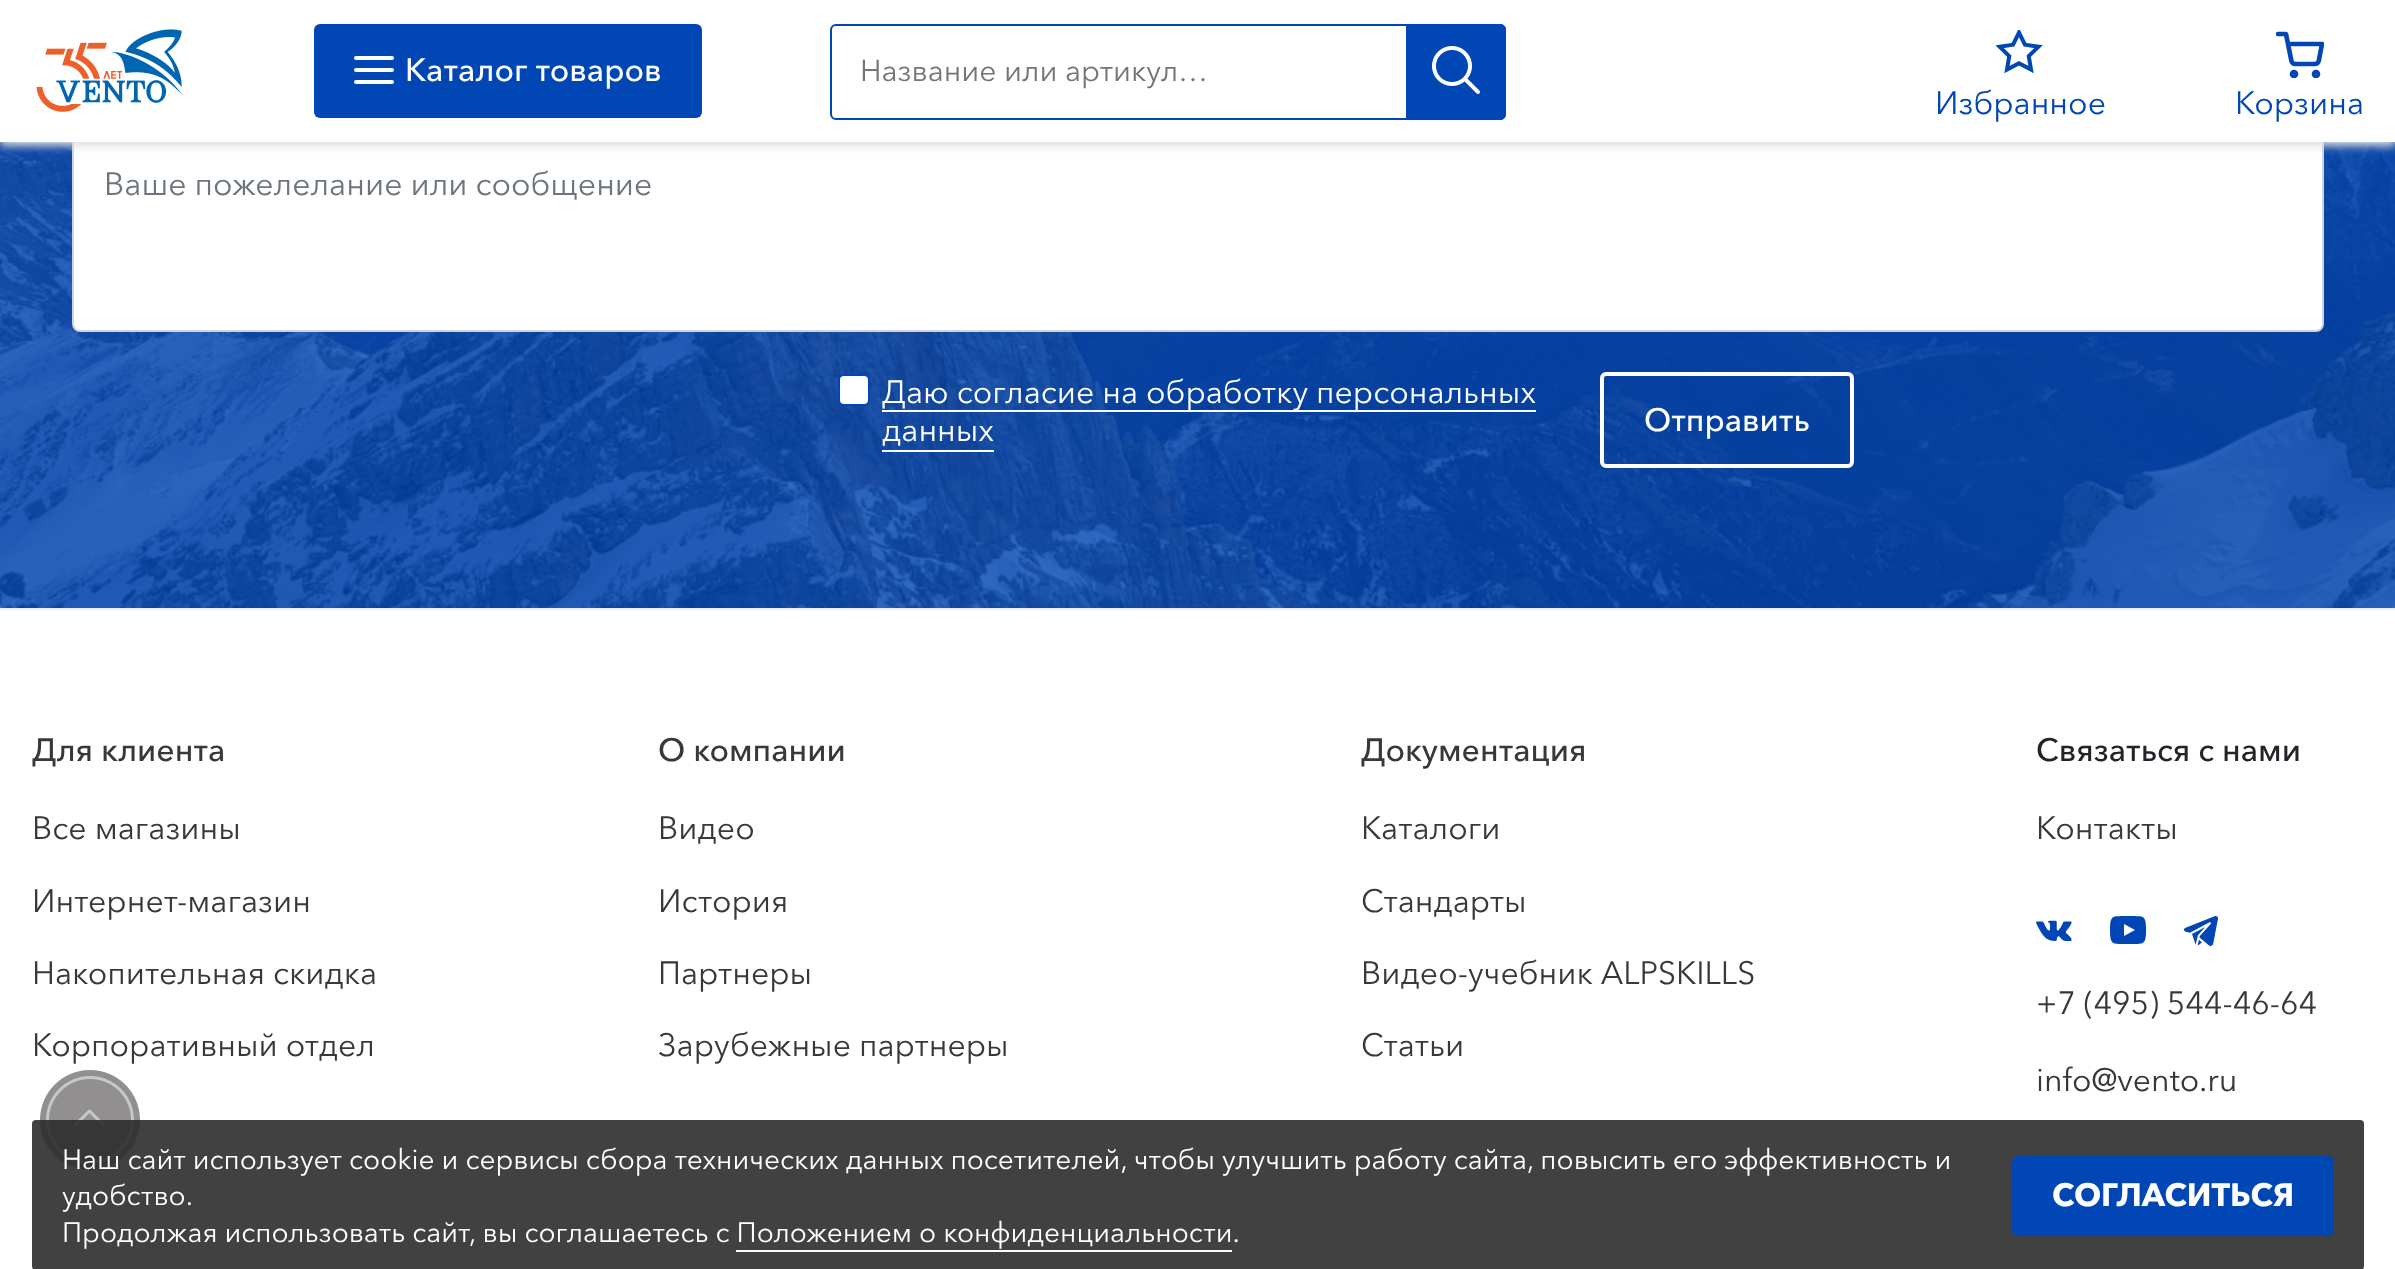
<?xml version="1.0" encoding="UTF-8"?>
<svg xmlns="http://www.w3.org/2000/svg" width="2395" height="1269">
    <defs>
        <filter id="blur1" x="-50%" y="-200%" width="200%" height="500%"><feGaussianBlur stdDeviation="4"/></filter>
    </defs>
    <rect width="100%" height="100%" fill="#326AC2"/>
    <image x="0" y="142" width="2395" height="466" href="img_05.png"/>
    <rect x="73" y="133" width="2250" height="198" rx="7" fill="#FFFFFF" stroke="#CED4DA" stroke-width="2"/>
    <rect x="0" y="4" width="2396" height="142" fill="#DFDFDF" filter="url(#blur1)"/>
    <rect x="0" y="0" width="2395" height="142" fill="#FFFFFF"/>
    <image x="36" y="29" width="146" height="83" href="img_01.png"/>
    <rect x="314" y="24" width="388" height="94" rx="6" fill="#0046B4"/>
    <rect x="354" y="68" width="40" height="4" rx="2" fill="#FFFFFF"/>
    <rect x="354" y="56" width="40" height="4" rx="2" fill="#FFFFFF"/>
    <rect x="354" y="80" width="40" height="4" rx="2" fill="#FFFFFF"/>
    <text x="405" y="81" font-family="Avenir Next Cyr" font-size="32" font-weight="500" fill="#FFFFFF">Каталог товаров</text>
    <rect x="831" y="25" width="674" height="94" rx="5" fill="none" stroke="#0046B4" stroke-width="2"/>
    <text x="860" y="81" font-family="Avenir Next Cyr" font-size="30" fill="#757575">Название или артикул…</text>
    <path d="M 1406 24 H 1500 C 1503.5 24 1506 26.5 1506 30 V 114 C 1506 117.5 1503.5 120 1500 120 H 1406 Z" fill="#0046B4"/>
    <image x="1432" y="46" width="48" height="48" href="img_02.png"/>
    <image x="1996" y="30" width="47" height="44" href="img_03.png"/>
    <text x="1935" y="114" font-family="Avenir Next Cyr" font-size="32" fill="#0046B4">Избранное</text>
    <image x="2276" y="31" width="48" height="47" href="img_04.png"/>
    <text x="2235" y="114" font-family="Avenir Next Cyr" font-size="32" fill="#0046B4">Корзина</text>
    <text x="104" y="195" font-family="Avenir Next Cyr" font-size="32" fill="#6C757D">Ваше пожелелание или сообщение</text>
    <rect x="839" y="375" width="30" height="30" rx="5" fill="#FFFFFF" stroke="#0046B4" stroke-width="2"/>
    <rect x="882" y="410" width="654" height="2" fill="#FFFFFF"/>
    <text font-family="Avenir Next Cyr" font-size="32" fill="#FFFFFF">
        <tspan x="882" y="403">Даю согласие на обработку персональных</tspan>
        <tspan x="882" y="441">данных</tspan>
    </text>
    <rect x="882" y="450" width="112" height="2" fill="#FFFFFF"/>
    <rect x="1602" y="374" width="250" height="92" rx="4" fill="none" stroke="#FFFFFF" stroke-width="4"/>
    <text x="1644" y="431" font-family="Avenir Next Cyr" font-size="32" font-weight="500" fill="#FFFFFF">Отправить</text>
    <rect x="0" y="610" width="2395" height="659" fill="#FFFFFF"/>
    <rect x="0" y="608" width="2395" height="2" fill="#EFEFEF"/>
    <text x="32" y="761" font-family="Avenir Next Cyr" font-size="32" font-weight="500" fill="#383838">Для клиента</text>
    <text x="32" y="839" font-family="Avenir Next Cyr" font-size="32" fill="#383838">Все магазины</text>
    <text x="32" y="912" font-family="Avenir Next Cyr" font-size="32" fill="#383838">Интернет-магазин</text>
    <text x="32" y="984" font-family="Avenir Next Cyr" font-size="32" fill="#383838">Накопительная скидка</text>
    <text x="32" y="1056" font-family="Avenir Next Cyr" font-size="32" fill="#383838">Корпоративный отдел</text>
    <text x="658" y="761" font-family="Avenir Next Cyr" font-size="32" font-weight="500" fill="#383838">О компании</text>
    <text x="658" y="839" font-family="Avenir Next Cyr" font-size="32" fill="#383838">Видео</text>
    <text x="658" y="912" font-family="Avenir Next Cyr" font-size="32" fill="#383838">История</text>
    <text x="658" y="984" font-family="Avenir Next Cyr" font-size="32" fill="#383838">Партнеры</text>
    <text x="658" y="1056" font-family="Avenir Next Cyr" font-size="32" fill="#383838">Зарубежные партнеры</text>
    <text x="1361" y="761" font-family="Avenir Next Cyr" font-size="32" font-weight="500" fill="#383838">Документация</text>
    <text x="1361" y="839" font-family="Avenir Next Cyr" font-size="32" fill="#383838">Каталоги</text>
    <text x="1361" y="912" font-family="Avenir Next Cyr" font-size="32" fill="#383838">Стандарты</text>
    <text x="1361" y="984" font-family="Avenir Next Cyr" font-size="32" fill="#383838">Видео-учебник ALPSKILLS</text>
    <text x="1361" y="1056" font-family="Avenir Next Cyr" font-size="32" fill="#383838">Статьи</text>
    <text x="2036" y="761" font-family="Avenir Next Cyr" font-size="32" font-weight="500" fill="#212529">Связаться с нами</text>
    <text x="2036" y="839" font-family="Avenir Next Cyr" font-size="32" fill="#383838">Контакты</text>
    <image x="2036" y="920" width="36" height="21" href="img_06.png"/>
    <image x="2110" y="916" width="36" height="28" href="img_07.png"/>
    <image x="2184" y="916" width="34" height="30" href="img_08.png"/>
    <text x="2036" y="1014" font-family="Avenir Next Cyr" font-size="32" fill="#383838">+7 (495) 544-46-64</text>
    <text x="2036" y="1091" font-family="Avenir Next Cyr" font-size="32" fill="#383838">info@vento.ru</text>
    <image x="40" y="1070" width="100" height="100" href="img_09.png"/>
    <rect x="32" y="1120" width="2332" height="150" rx="4" fill="#2C2C2C" fill-opacity="0.9"/>
    <text font-family="Avenir Next Cyr" font-size="28" fill="#FFFFFF">
        <tspan x="62" y="1169">Наш сайт использует cookie и сервисы сбора технических данных посетителей, чтобы улучшить работу сайта, повысить его эффективность и</tspan>
        <tspan x="62" y="1205">удобство.</tspan>
        <tspan x="62" y="1242">Продолжая использовать сайт, вы соглашаетесь с Положением о конфиденциальности.</tspan>
    </text>
    <rect x="736" y="1250" width="496" height="2" fill="#FFFFFF"/>
    <rect x="2012" y="1156" width="322" height="80" rx="6" fill="#0046B4"/>
    <text x="2052" y="1206" font-family="Avenir Next Cyr" font-size="32" font-weight="700" fill="#FFFFFF">СОГЛАСИТЬСЯ</text>
</svg>
